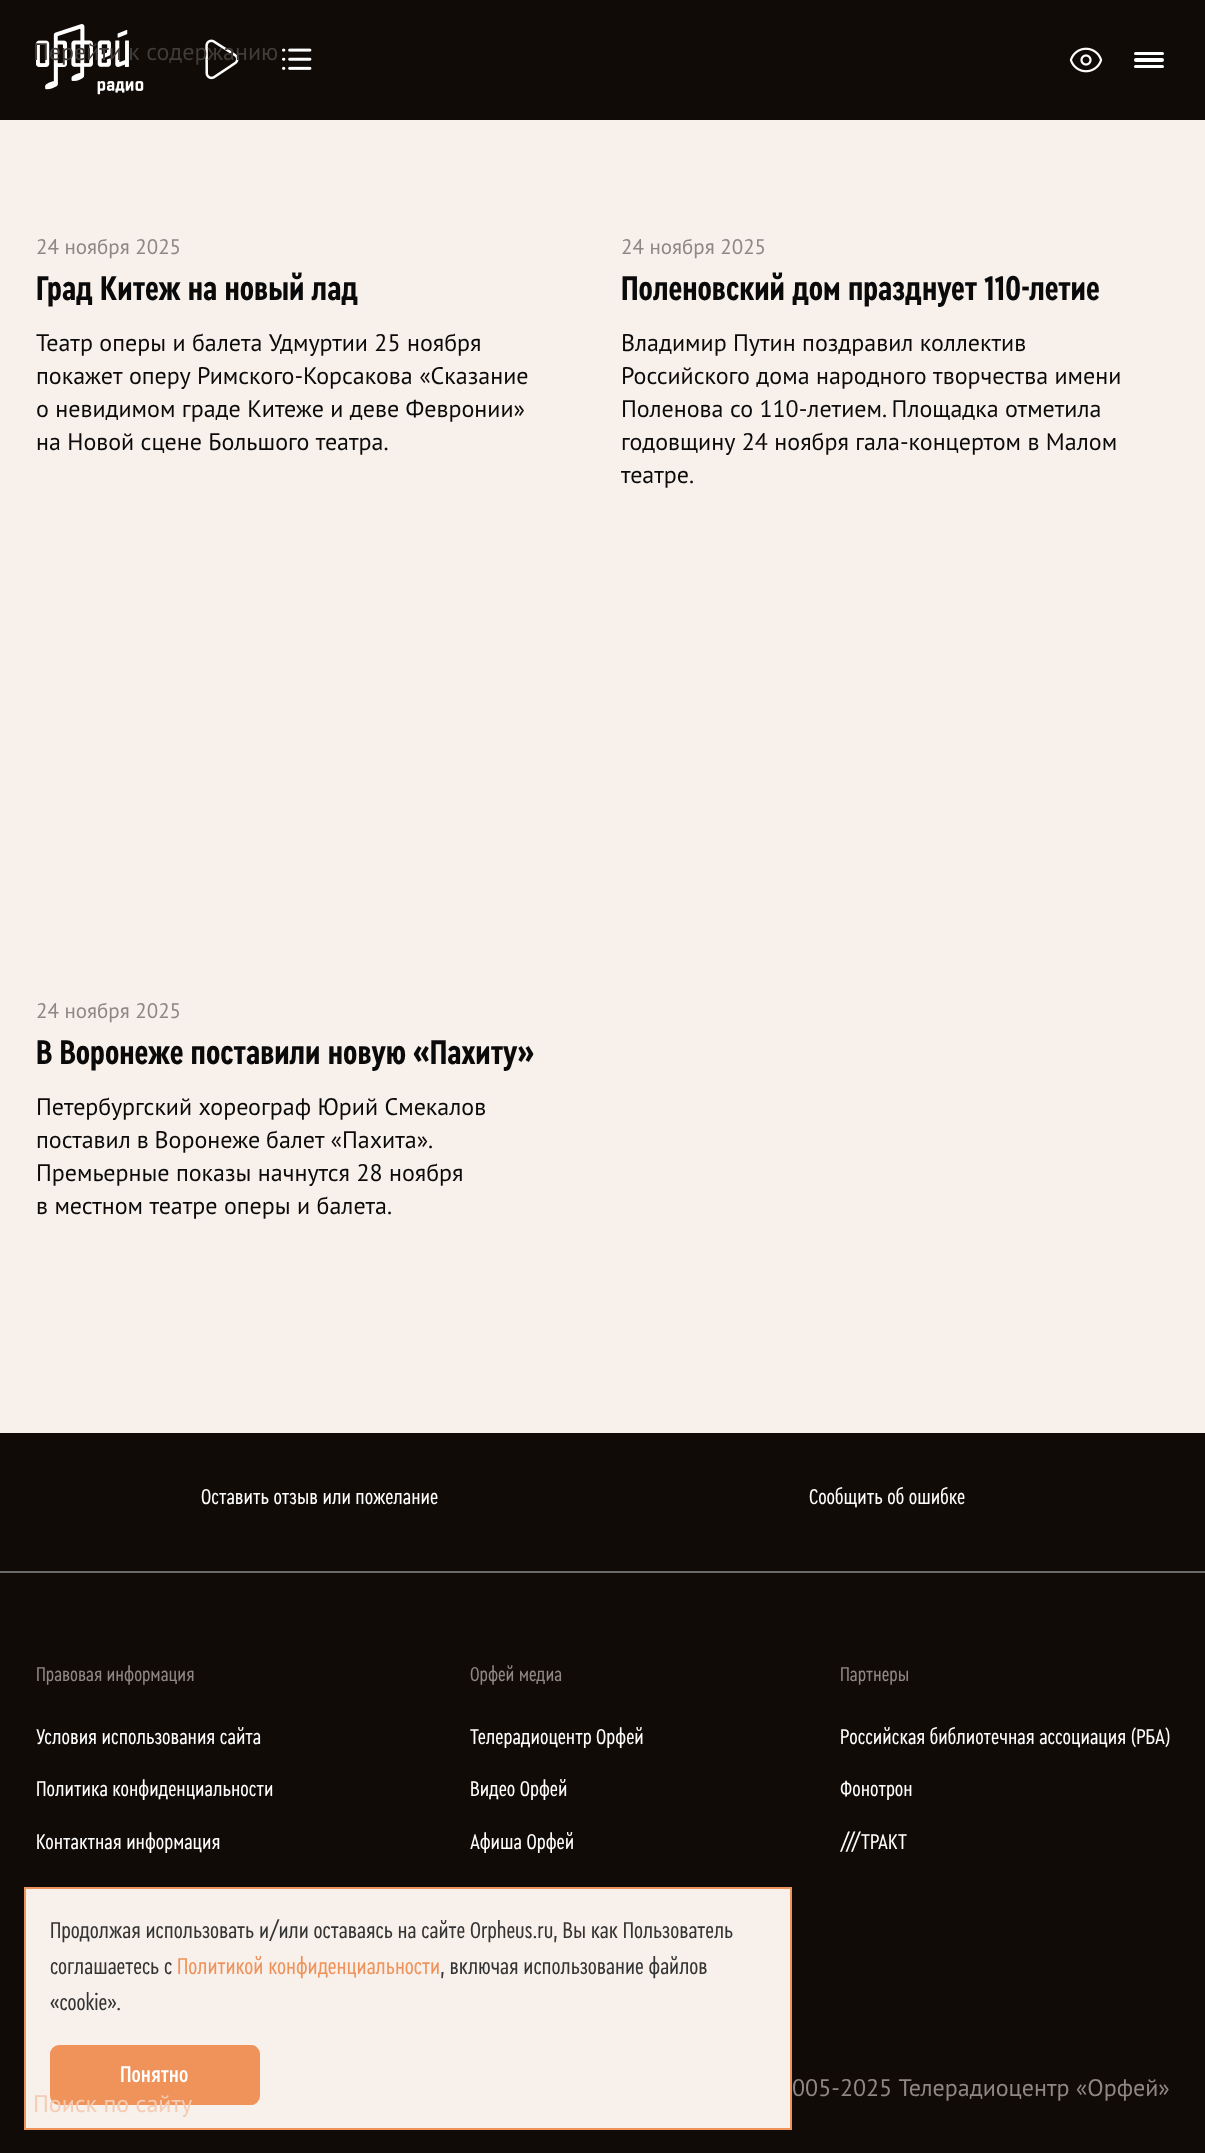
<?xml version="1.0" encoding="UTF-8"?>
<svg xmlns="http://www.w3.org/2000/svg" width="1205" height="2153">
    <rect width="100%" height="100%" fill="#F7F0EB"/>
    <rect x="0" y="0" width="1205" height="120" fill="#110B08"/>
    <image x="36" y="24" width="108" height="71" href="img_01.png"/>
    <image x="1069" y="47" width="34" height="26" href="img_02.png"/>
    <rect x="1134" y="52" width="30" height="3" rx="1.5" fill="#FFFFFF"/>
    <rect x="1134" y="58" width="30" height="4" rx="2" fill="#FFFFFF"/>
    <rect x="1134" y="65" width="30" height="3" rx="1.5" fill="#FFFFFF"/>
    <image x="205" y="39" width="34" height="41" href="img_03.png"/>
    <image x="282" y="48" width="30" height="22" href="img_04.png"/>
    <text x="33" y="60" font-family="PT Sans" font-size="24" fill="#413C3A">Перейти к содержанию</text>
    <text x="36" y="254" font-family="PT Sans" font-size="21" fill="#908686">24 ноября 2025</text>
    <text x="36" y="300" font-family="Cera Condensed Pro" font-size="36" font-weight="700" fill="#0B0A0A">Град Китеж на новый лад</text>
    <text font-family="PT Sans" font-size="24" fill="#0B0A0A">
        <tspan x="36" y="351">Театр оперы и балета Удмуртии 25 ноября</tspan>
        <tspan x="36" y="384">покажет оперу Римского-Корсакова «Сказание</tspan>
        <tspan x="36" y="417">о невидимом граде Китеже и деве Февронии»</tspan>
        <tspan x="36" y="450">на Новой сцене Большого театра.</tspan>
    </text>
    <text x="621" y="254" font-family="PT Sans" font-size="21" fill="#908686">24 ноября 2025</text>
    <text x="621" y="300" font-family="Cera Condensed Pro" font-size="36" font-weight="700" fill="#0B0A0A">Поленовский дом празднует 110-летие</text>
    <text font-family="PT Sans" font-size="24" fill="#0B0A0A">
        <tspan x="621" y="351">Владимир Путин поздравил коллектив</tspan>
        <tspan x="621" y="384">Российского дома народного творчества имени</tspan>
        <tspan x="621" y="417">Поленова со 110-летием. Площадка отметила</tspan>
        <tspan x="621" y="450">годовщину 24 ноября гала-концертом в Малом</tspan>
        <tspan x="621" y="483">театре.</tspan>
    </text>
    <text x="36" y="1018" font-family="PT Sans" font-size="21" fill="#908686">24 ноября 2025</text>
    <text x="36" y="1064" font-family="Cera Condensed Pro" font-size="36" font-weight="700" fill="#0B0A0A">В Воронеже поставили новую «Пахиту»</text>
    <text font-family="PT Sans" font-size="24" fill="#0B0A0A">
        <tspan x="36" y="1115">Петербургский хореограф Юрий Смекалов</tspan>
        <tspan x="36" y="1148" word-spacing="-0.5">поставил в Воронеже балет «Пахита».</tspan>
        <tspan x="36" y="1181">Премьерные показы начнутся 28 ноября</tspan>
        <tspan x="36" y="1214">в местном театре оперы и балета.</tspan>
    </text>
    <rect x="0" y="1433" width="1205" height="720" fill="#110B08"/>
    <text x="201" y="1504" font-family="Cera Condensed Pro" font-size="22.5" fill="#FFFFFF">Оставить отзыв или пожелание</text>
    <text x="809" y="1504" font-family="Cera Condensed Pro" font-size="22.5" fill="#FFFFFF">Сообщить об ошибке</text>
    <rect x="0" y="1571" width="1205" height="2" fill="#6A6A6A"/>
    <text x="36" y="1681" font-family="Cera Condensed Pro" font-size="21" fill="#908686">Правовая информация</text>
    <text x="36" y="1744" font-family="Cera Condensed Pro" font-size="22.5" fill="#FFFFFF">Условия использования сайта</text>
    <text x="36" y="1796" font-family="Cera Condensed Pro" font-size="22.5" fill="#FFFFFF">Политика конфиденциальности</text>
    <text x="36" y="1849" font-family="Cera Condensed Pro" font-size="22.5" fill="#FFFFFF">Контактная информация</text>
    <text x="470" y="1681" font-family="Cera Condensed Pro" font-size="21" fill="#908686">Орфей медиа</text>
    <text x="470" y="1744" font-family="Cera Condensed Pro" font-size="22.5" fill="#FFFFFF">Телерадиоцентр Орфей</text>
    <text x="470" y="1796" font-family="Cera Condensed Pro" font-size="22.5" fill="#FFFFFF">Видео Орфей</text>
    <text x="470" y="1849" font-family="Cera Condensed Pro" font-size="22.5" fill="#FFFFFF">Афиша Орфей</text>
    <text x="840" y="1681" font-family="Cera Condensed Pro" font-size="21" fill="#908686">Партнеры</text>
    <text x="840" y="1744" font-family="Cera Condensed Pro" font-size="22.5" fill="#FFFFFF">Российская библиотечная ассоциация (РБА)</text>
    <text x="840" y="1796" font-family="Cera Condensed Pro" font-size="22.5" fill="#FFFFFF">Фонотрон</text>
    <text x="840" y="1849" font-family="Cera Condensed Pro" font-size="22.5" fill="#FFFFFF">///ТРАКТ</text>
    <text x="792" y="2096" font-family="PT Sans" font-size="24" fill="#908686">005-2025 Телерадиоцентр «Орфей»</text>
    <rect x="25" y="1888" width="766" height="241" fill="#F7F0EB" stroke="#F0935B" stroke-width="2"/>
    <text font-family="Cera Condensed Pro" font-size="24" fill="#343434">
        <tspan x="50" y="1938">Продолжая использовать и/или оставаясь на сайте Orpheus.ru, Вы как Пользователь</tspan>
        <tspan x="50" y="1974">соглашаетесь с</tspan>
    </text>
    <text x="177" y="1974" font-family="Cera Condensed Pro" font-size="24" fill="#F0935B">Политикой конфиденциальности</text>
    <text x="440" y="1974" font-family="Cera Condensed Pro" font-size="24" fill="#343434">, включая использование файлов</text>
    <text x="50" y="2010" font-family="Cera Condensed Pro" font-size="24" fill="#343434">«cookie».</text>
    <rect x="51" y="2046" width="208" height="58" rx="8" fill="#F0935B" stroke="#F0935B" stroke-width="2"/>
    <text x="120" y="2082" font-family="Cera Condensed Pro" font-size="24" font-weight="500" fill="#FFFFFF">Понятно</text>
    <text x="33" y="2112" font-family="PT Sans" font-size="24" fill="#F4CCB4">Поиск по сайту</text>
</svg>
